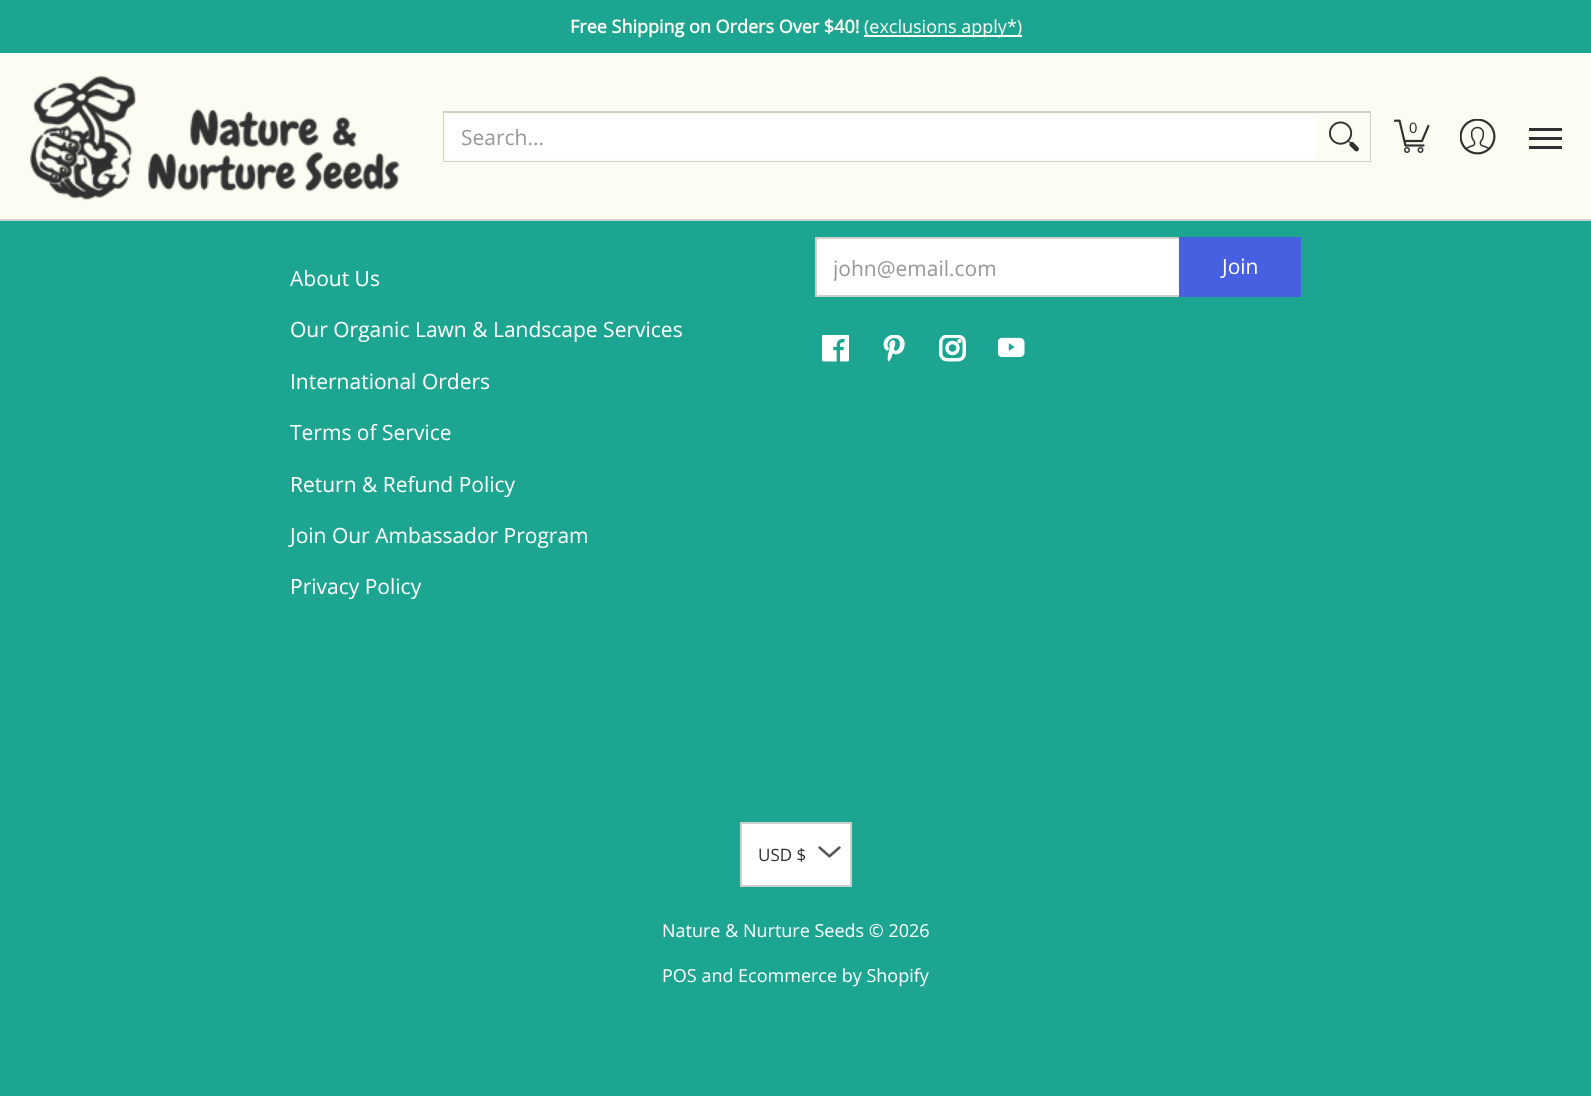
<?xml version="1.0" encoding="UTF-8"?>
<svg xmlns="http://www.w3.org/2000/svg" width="1591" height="1096">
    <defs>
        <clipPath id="clip1"><rect x="834" y="254" width="329" height="28"/></clipPath>
    </defs>
    <rect width="100%" height="100%" fill="#1CA691"/>
    <text x="570" y="33" font-family="Open Sans" font-size="18" font-weight="700" fill="#FCFCF2">Free Shipping on Orders Over $40!</text>
    <rect x="864" y="35" width="158" height="2" fill="#FCFCF2"/>
    <text x="864" y="33" font-family="Open Sans" font-size="18" fill="#FCFCF2">(exclusions apply*)</text>
    <rect x="0" y="219" width="1591" height="2" fill="#CDD1CE"/>
    <rect x="0" y="53" width="1591" height="166" fill="#FCFCF2"/>
    <image x="30" y="75" width="370" height="126" href="img_01.png"/>
    <rect x="444" y="112" width="926" height="49" fill="none" stroke="#CDD1CE" stroke-width="2"/>
    <rect x="445" y="114" width="873" height="46" fill="#FFFFFF" stroke="#FCFCF2" stroke-width="2"/>
    <text x="461" y="145" font-family="Open Sans" font-size="21" fill="#989898">Search...</text>
    <rect x="1319" y="113" width="51" height="48" fill="#FCFCF2"/>
    <image x="1329" y="121" width="30" height="31" href="img_02.png"/>
    <image x="1394" y="119" width="36" height="34" href="img_03.png"/>
    <text x="1409" y="133" font-family="Liberation Sans" font-size="15" fill="#303030">0</text>
    <image x="1460" y="119" width="36" height="36" href="img_04.png"/>
    <rect x="1529" y="128" width="33" height="3" fill="#303030"/>
    <rect x="1529" y="146" width="33" height="3" fill="#303030"/>
    <rect x="1529" y="137" width="33" height="3" fill="#303030"/>
    <text x="290" y="286" font-family="Open Sans" font-size="21" fill="#FFFFFF">About Us</text>
    <text x="290" y="337" font-family="Open Sans" font-size="21" fill="#FFFFFF">Our Organic Lawn &amp; Landscape Services</text>
    <text x="290" y="389" font-family="Open Sans" font-size="21" fill="#FFFFFF">International Orders</text>
    <text x="290" y="440" font-family="Open Sans" font-size="21" fill="#FFFFFF">Terms of Service</text>
    <text x="290" y="492" font-family="Open Sans" font-size="21" fill="#FFFFFF">Return &amp; Refund Policy</text>
    <text x="290" y="543" font-family="Open Sans" font-size="21" fill="#FFFFFF">Join Our Ambassador Program</text>
    <text x="290" y="594" font-family="Open Sans" font-size="21" fill="#FFFFFF">Privacy Policy</text>
    <rect x="817" y="239" width="362" height="56" fill="#FFFFFF"/>
    <rect x="816" y="238" width="365" height="58" fill="none" stroke="#CDD1CE" stroke-width="2"/>
    <g clip-path="url(#clip1)">
        <text x="833" y="276" font-family="Open Sans" font-size="21" fill="#989898">john@email.com</text>
    </g>
    <rect x="1179" y="237" width="122" height="60" fill="#475FE1"/>
    <text x="1222" y="274" font-family="Open Sans" font-size="21" fill="#FFFFFF">Join</text>
    <image x="822" y="335" width="27" height="27" href="img_05.png"/>
    <image x="883" y="335" width="22" height="27" href="img_06.png"/>
    <image x="939" y="335" width="27" height="27" href="img_07.png"/>
    <image x="998" y="337" width="27" height="20" href="img_08.png"/>
    <rect x="742" y="824" width="108" height="61" fill="#FFFFFF"/>
    <image x="818" y="846" width="23" height="12" href="img_09.png"/>
    <rect x="741" y="823" width="110" height="63" fill="none" stroke="#CDD1CE" stroke-width="2"/>
    <text x="758" y="861" font-family="Open Sans" font-size="17" fill="#303030">USD $</text>
    <text x="662" y="937" font-family="Open Sans" font-size="18" fill="#FFFFFF">Nature &amp; Nurture Seeds © 2026</text>
    <text x="662" y="982" font-family="Open Sans" font-size="18" fill="#FFFFFF">POS and Ecommerce by Shopify</text>
</svg>
